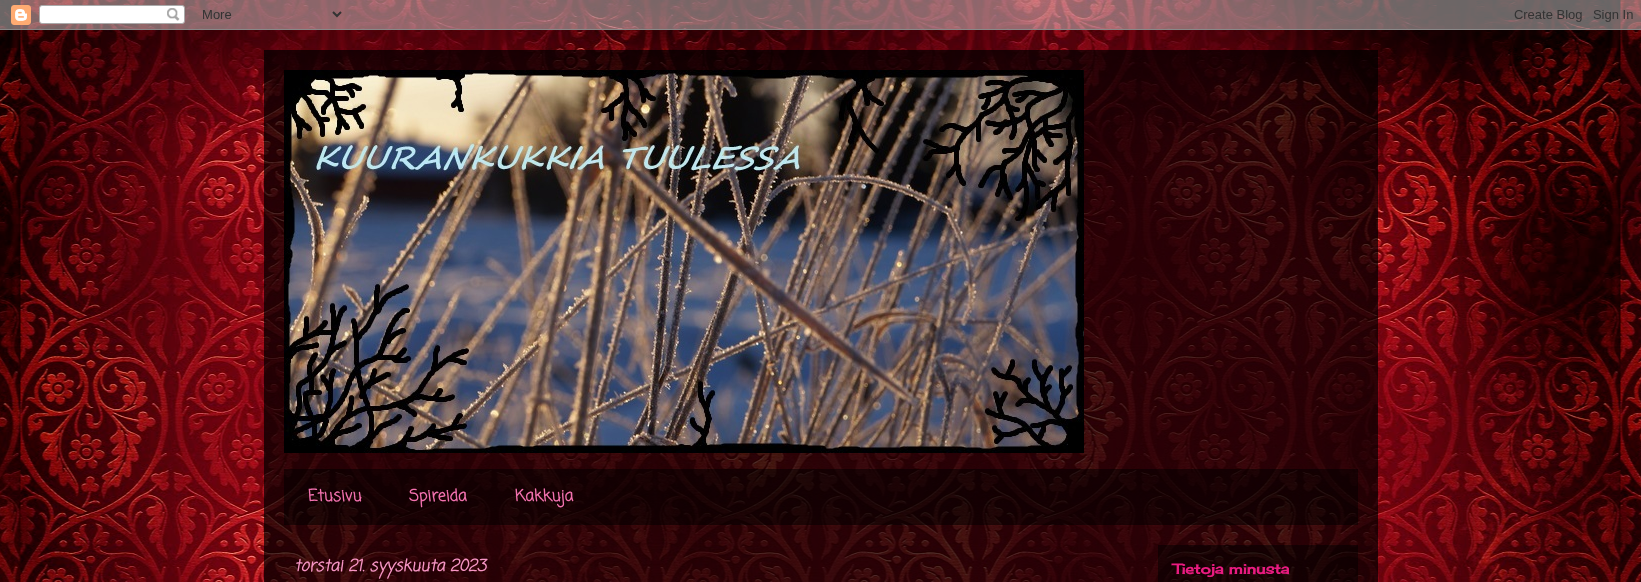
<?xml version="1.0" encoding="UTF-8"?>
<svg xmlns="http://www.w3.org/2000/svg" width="1641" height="582">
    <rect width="100%" height="100%" fill="#FFFFFF"/>
    <image x="0" y="0" width="1641" height="582" href="img_01.png"/>
    <image x="0" y="0" width="1641" height="30" href="img_02.png"/>
    <rect x="264" y="50" width="1114" height="532" fill="#000000" fill-opacity="0.7"/>
    <image x="284" y="70" width="800" height="383" href="img_03.png"/>
    <rect x="284" y="469" width="1074" height="56" fill="#000000" fill-opacity="0.5"/>
    <text x="308" y="501" font-family="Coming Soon" font-size="16" font-weight="700" fill="#F271AF">Etusivu</text>
    <text x="409" y="501" font-family="Coming Soon" font-size="16" font-weight="700" fill="#F271AF">Spireida</text>
    <text x="515" y="501" font-family="Coming Soon" font-size="16" font-weight="700" fill="#F271AF">Kakkuja</text>
    <rect x="1158" y="545" width="200" height="37" fill="#000000" fill-opacity="0.5"/>
    <text x="294" y="571" font-family="Coming Soon" font-size="16" font-weight="700" font-style="italic" fill="#F695C4">torstai 21. syyskuuta 2023</text>
    <text x="1173" y="574" font-family="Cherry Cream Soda" font-size="14" font-weight="700" fill="#E91B81">Tietoja minusta</text>
</svg>
